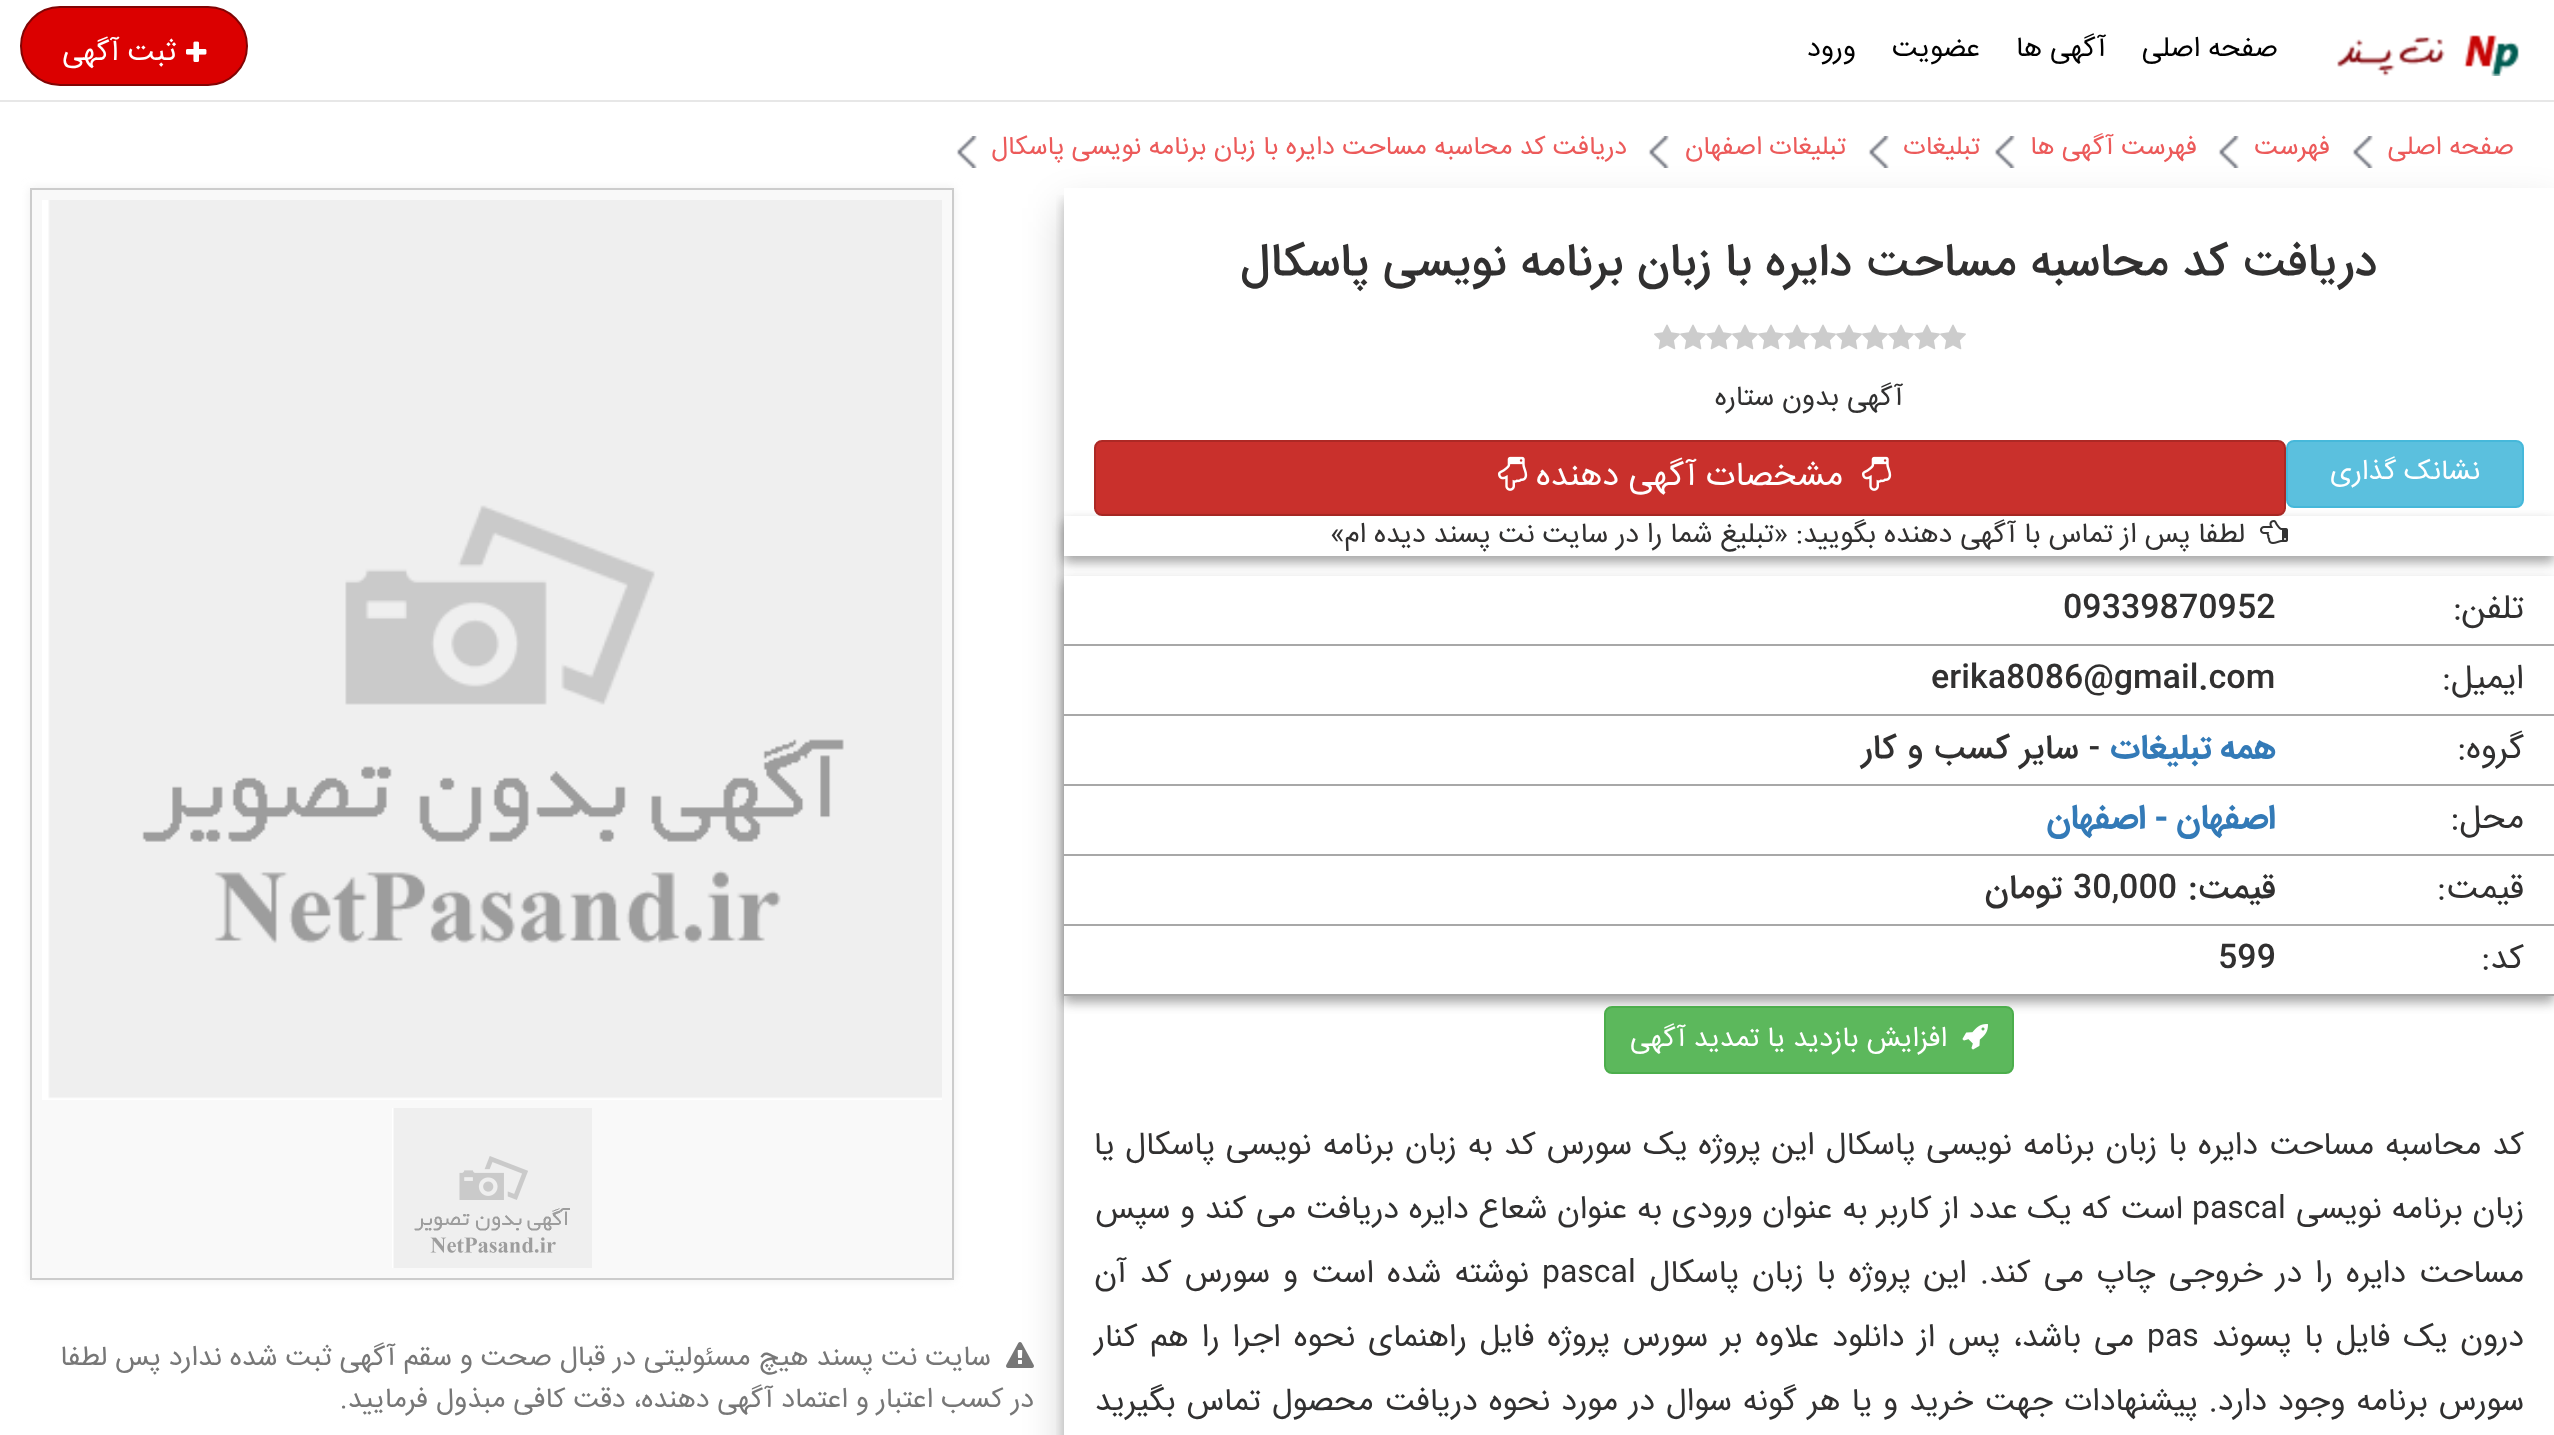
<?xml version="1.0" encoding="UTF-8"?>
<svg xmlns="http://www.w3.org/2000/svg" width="2554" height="1435">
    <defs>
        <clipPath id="clip1"><rect x="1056" y="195" width="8" height="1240"/></clipPath>
        <filter id="blur1" x="-50%" y="-200%" width="200%" height="500%"><feGaussianBlur stdDeviation="6"/></filter>
        <clipPath id="clip2"><path d="M 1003 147 H 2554 V 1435 H 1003 Z M 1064 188 H 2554 V 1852 H 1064 Z" clip-rule="evenodd"/></clipPath>
        <filter id="blur2" x="-50%" y="-200%" width="200%" height="500%"><feGaussianBlur stdDeviation="20"/></filter>
        <clipPath id="clip3"><path d="M 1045 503 H 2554 V 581 H 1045 Z M 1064 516 H 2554 V 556 H 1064 Z" clip-rule="evenodd"/></clipPath>
        <clipPath id="clip4"><path d="M 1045 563 H 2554 V 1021 H 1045 Z M 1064 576 H 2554 V 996 H 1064 Z" clip-rule="evenodd"/></clipPath>
        <filter id="blur3" x="-50%" y="-200%" width="200%" height="500%"><feGaussianBlur stdDeviation="5"/></filter>
    </defs>
    <rect width="100%" height="100%" fill="#FFFFFF"/>
    <rect x="0" y="100" width="2554" height="2" fill="#E7E7E7"/>
    <image x="2337" y="35" width="182" height="41" href="img_01.png"/>
    <text x="2278" y="56" font-family="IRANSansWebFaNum" font-size="28" direction="rtl" fill="#000000">صفحه اصلی</text>
    <text x="2106" y="56" font-family="IRANSansWebFaNum" font-size="28" direction="rtl" fill="#000000">آگهی ها</text>
    <text x="1980" y="56" font-family="IRANSansWebFaNum" font-size="28" direction="rtl" fill="#000000">عضویت</text>
    <text x="1856" y="56" font-family="IRANSansWebFaNum" font-size="28" direction="rtl" fill="#000000">ورود</text>
    <rect x="21" y="7" width="226" height="78" rx="39" fill="#DB0000" stroke="#820404" stroke-width="2"/>
    <image x="186" y="41" width="21" height="21" href="img_02.png"/>
    <text x="176" y="60" font-family="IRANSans" font-size="26" direction="rtl" fill="#FFFFFF">ثبت آگهی</text>
    <text x="2514" y="154" font-family="IRANSansWebFaNum" font-size="26" direction="rtl" fill="#EC5A5A">صفحه اصلی</text>
    <image x="2352" y="136" width="21" height="32" href="img_03.png"/>
    <text x="2330" y="154" font-family="IRANSansWebFaNum" font-size="26" direction="rtl" fill="#EC5A5A">فهرست</text>
    <image x="2218" y="136" width="21" height="32" href="img_03.png"/>
    <text x="2197" y="154" font-family="IRANSansWebFaNum" font-size="26" direction="rtl" fill="#EC5A5A">فهرست آگهی ها</text>
    <image x="1994" y="136" width="21" height="32" href="img_03.png"/>
    <text x="1980" y="154" font-family="IRANSansWebFaNum" font-size="26" direction="rtl" fill="#EC5A5A">تبلیغات</text>
    <image x="1868" y="136" width="21" height="32" href="img_03.png"/>
    <text x="1846" y="154" font-family="IRANSansWebFaNum" font-size="26" direction="rtl" fill="#EC5A5A">تبلیغات</text>
    <text x="1762" y="154" font-family="IRANSansWebFaNum" font-size="26" direction="rtl" fill="#EC5A5A">اصفهان</text>
    <image x="1648" y="136" width="21" height="32" href="img_03.png"/>
    <text x="1627" y="154" font-family="IRANSansWebFaNum" font-size="26" direction="rtl" fill="#EC5A5A">دریافت کد محاسبه مساحت دایره با زبان برنامه نویسی پاسکال</text>
    <image x="956" y="136" width="21" height="32" href="img_03.png"/>
    <g clip-path="url(#clip1)">
        <rect x="1064" y="200" width="1490" height="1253" fill="#000000" fill-opacity="0.23" filter="url(#blur1)"/>
    </g>
    <g clip-path="url(#clip2)">
        <rect x="1064" y="208" width="1490" height="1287" fill="#000000" fill-opacity="0.19" filter="url(#blur2)"/>
    </g>
    <text x="2377" y="275" font-family="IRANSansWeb" font-size="46" font-weight="500" direction="rtl" fill="#313030">دریافت کد محاسبه مساحت دایره با زبان برنامه نویسی پاسکال</text>
    <image x="1940" y="324" width="26" height="26" href="img_04.png"/>
    <image x="1914" y="324" width="26" height="26" href="img_04.png"/>
    <image x="1888" y="324" width="26" height="26" href="img_04.png"/>
    <image x="1862" y="324" width="26" height="26" href="img_04.png"/>
    <image x="1836" y="324" width="26" height="26" href="img_04.png"/>
    <image x="1810" y="324" width="26" height="26" href="img_04.png"/>
    <image x="1784" y="324" width="26" height="26" href="img_04.png"/>
    <image x="1758" y="324" width="26" height="26" href="img_04.png"/>
    <image x="1732" y="324" width="26" height="26" href="img_04.png"/>
    <image x="1706" y="324" width="26" height="26" href="img_04.png"/>
    <image x="1680" y="324" width="26" height="26" href="img_04.png"/>
    <image x="1654" y="324" width="26" height="26" href="img_04.png"/>
    <text x="1903" y="405" font-family="IRANSansWebFaNum" font-size="28" direction="rtl" fill="#313030">آگهی بدون ستاره</text>
    <rect x="2287" y="441" width="236" height="66" rx="7" fill="#5BC0DE" stroke="#46B8DA" stroke-width="2"/>
    <text x="2480" y="479" font-family="IRANSansWebFaNum" font-size="28" direction="rtl" fill="#FFFFFF">نشانک گذاری</text>
    <rect x="1095" y="441" width="1190" height="74" rx="7" fill="#C9302C" stroke="#AC2925" stroke-width="2"/>
    <image x="1862" y="456" width="30" height="35" href="img_05.png"/>
    <text x="1843" y="485" font-family="IRANSansWebFaNum" font-size="34" direction="rtl" fill="#FFFFFF">مشخصات آگهی دهنده</text>
    <image x="1498" y="456" width="30" height="35" href="img_05.png"/>
    <g clip-path="url(#clip3)">
        <rect x="1064" y="522" width="1490" height="40" fill="#000000" fill-opacity="0.23" filter="url(#blur1)"/>
        <rect x="1064" y="522" width="1490" height="40" fill="#000000" fill-opacity="0.16" filter="url(#blur1)"/>
    </g>
    <image x="2260" y="520" width="28" height="24" href="img_06.png"/>
    <text x="2245" y="542" font-family="IRANSansWebFaNum" font-size="28" direction="rtl" fill="#313030">لطفا پس از تماس با آگهی دهنده بگویید: «تبلیغ شما را در سایت نت پسند دیده ام»</text>
    <g clip-path="url(#clip4)">
        <rect x="1064" y="582" width="1490" height="420" fill="#000000" fill-opacity="0.23" filter="url(#blur1)"/>
        <rect x="1064" y="582" width="1490" height="420" fill="#000000" fill-opacity="0.16" filter="url(#blur1)"/>
    </g>
    <rect x="1064" y="644" width="1490" height="2" fill="#A8A8A8"/>
    <text x="2524" y="618" font-family="IRANSansWeb" font-size="34" direction="rtl" fill="#313030">تلفن:</text>
    <text x="2063" y="618" font-family="IRANSansWeb" font-size="34" font-weight="500" fill="#313030">09339870952</text>
    <rect x="1064" y="714" width="1490" height="2" fill="#A8A8A8"/>
    <text x="2524" y="688" font-family="IRANSansWeb" font-size="34" direction="rtl" fill="#313030">ایمیل:</text>
    <text x="1931" y="688" font-family="IRANSansWeb" font-size="34" font-weight="500" fill="#313030">erika8086@gmail.com</text>
    <rect x="1064" y="784" width="1490" height="2" fill="#A8A8A8"/>
    <text x="2524" y="758" font-family="IRANSansWeb" font-size="34" direction="rtl" fill="#313030">گروه:</text>
    <text x="2276" y="758" font-family="IRANSansWebFaNum" font-size="34" font-weight="700" direction="rtl" fill="#337AB7">همه تبلیغات</text>
    <text x="2100" y="758" font-family="IRANSansWeb" font-size="34" font-weight="500" direction="rtl" fill="#313030">- سایر کسب و کار</text>
    <rect x="1064" y="854" width="1490" height="2" fill="#A8A8A8"/>
    <text x="2524" y="828" font-family="IRANSansWeb" font-size="34" direction="rtl" fill="#313030">محل:</text>
    <text x="2276" y="828" font-family="IRANSansWebFaNum" font-size="34" font-weight="700" direction="rtl" fill="#337AB7">اصفهان - اصفهان</text>
    <rect x="1064" y="924" width="1490" height="2" fill="#A8A8A8"/>
    <text x="2524" y="898" font-family="IRANSansWeb" font-size="34" direction="rtl" fill="#313030">قیمت:</text>
    <text x="2276" y="898" font-family="IRANSansWeb" font-size="34" font-weight="500" direction="rtl" fill="#313030">قیمت:</text>
    <text x="2073" y="898" font-family="IRANSansWeb" font-size="34" font-weight="500" fill="#313030">30,000</text>
    <text x="2063" y="898" font-family="IRANSansWeb" font-size="34" font-weight="500" direction="rtl" fill="#313030">تومان</text>
    <rect x="1064" y="994" width="1490" height="2" fill="#A8A8A8"/>
    <text x="2524" y="968" font-family="IRANSansWeb" font-size="34" direction="rtl" fill="#313030">کد:</text>
    <text x="2218" y="968" font-family="IRANSansWeb" font-size="34" font-weight="500" fill="#313030">599</text>
    <rect x="1605" y="1007" width="408" height="66" rx="7" fill="#5CB85C" stroke="#4CAE4C" stroke-width="2"/>
    <image x="1962" y="1024" width="26" height="26" href="img_07.png"/>
    <text x="1947" y="1046" font-family="IRANSansWebFaNum" font-size="28" direction="rtl" fill="#FFFFFF">افزایش بازدید یا تمدید آگهی</text>
    <text x="2524" y="1154" word-spacing="1.4" font-family="IRANSansWeb" font-size="32" direction="rtl" fill="#313030">کد محاسبه مساحت دایره با زبان برنامه نویسی پاسکال این پروژه یک سورس کد به زبان برنامه نویسی پاسکال یا</text>
    <text x="2524" y="1218" font-family="IRANSansWeb" font-size="32" direction="rtl" fill="#313030">زبان برنامه نویسی</text>
    <text x="2192" y="1218" font-family="IRANSansWeb" font-size="32" fill="#313030">pascal</text>
    <text x="2183" y="1218" font-family="IRANSansWeb" font-size="32" direction="rtl" fill="#313030">است که یک عدد از کاربر به عنوان ورودی به عنوان شعاع دایره دریافت می کند و سپس</text>
    <text x="2524" y="1282" word-spacing="3.4" font-family="IRANSansWeb" font-size="32" direction="rtl" fill="#313030">مساحت دایره را در خروجی چاپ می کند. این پروژه با زبان پاسکال</text>
    <text x="1542" y="1282" font-family="IRANSansWeb" font-size="32" fill="#313030">pascal</text>
    <text x="1529" y="1282" word-spacing="3.4" font-family="IRANSansWeb" font-size="32" direction="rtl" fill="#313030">نوشته شده است و سورس کد آن</text>
    <text x="2524" y="1346" word-spacing="3.25" font-family="IRANSansWeb" font-size="32" direction="rtl" fill="#313030">درون یک فایل با پسوند</text>
    <text x="2147" y="1346" font-family="IRANSansWeb" font-size="32" fill="#313030">pas</text>
    <text x="2134" y="1346" word-spacing="3.25" font-family="IRANSansWeb" font-size="32" direction="rtl" fill="#313030">می باشد، پس از دانلود علاوه بر سورس پروژه فایل راهنمای نحوه اجرا را هم کنار</text>
    <text x="2524" y="1410" word-spacing="1.4" font-family="IRANSansWeb" font-size="32" direction="rtl" fill="#313030">سورس برنامه وجود دارد. پیشنهادات جهت خرید و یا هر گونه سوال در مورد نحوه دریافت محصول تماس بگیرید</text>
    <rect x="30" y="188" width="924" height="1092" fill="#EEEEEE" filter="url(#blur3)"/>
    <rect x="31" y="189" width="922" height="1090" fill="#F9F9F9" stroke="#CCCCCC" stroke-width="2"/>
    <image x="42" y="200" width="900" height="900" href="img_08.png"/>
    <image x="392" y="1108" width="200" height="160" href="img_09.png"/>
    <image x="1006" y="1342" width="28" height="26" href="img_10.png"/>
    <text x="991" y="1365" font-family="IRANSansWebFaNum" font-size="28" direction="rtl" fill="#777777">سایت نت پسند هیچ مسئولیتی در قبال صحت و سقم آگهی ثبت شده ندارد پس لطفا</text>
    <text x="1034" y="1407" font-family="IRANSansWebFaNum" font-size="28" direction="rtl" fill="#777777">در کسب اعتبار و اعتماد آگهی دهنده، دقت کافی مبذول فرمایید.</text>
</svg>
